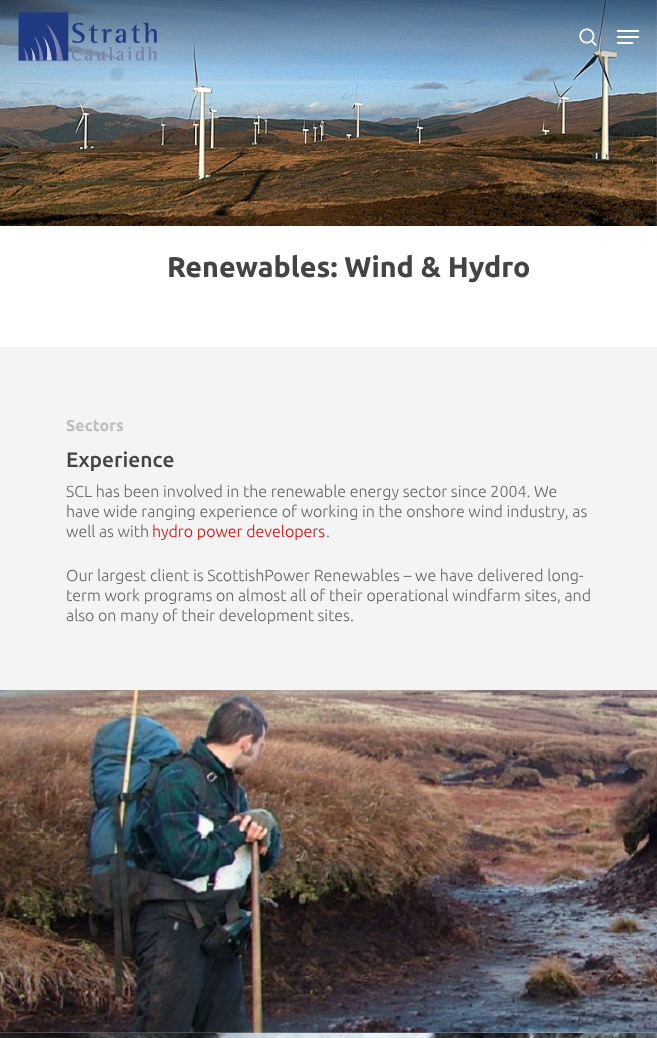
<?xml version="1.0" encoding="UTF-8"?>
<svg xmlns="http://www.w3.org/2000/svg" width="657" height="1038">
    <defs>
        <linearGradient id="g1" gradientUnits="userSpaceOnUse" x1="329" y1="0" x2="329" y2="74"><stop offset="0" stop-color="#000000" stop-opacity="0.2"/><stop offset="0.99" stop-color="#000000" stop-opacity="0"/></linearGradient>
        <linearGradient id="g2" gradientUnits="userSpaceOnUse" x1="329" y1="89" x2="329" y2="0"><stop offset="0" stop-color="#FFFFFF" stop-opacity="0"/><stop offset="0.01" stop-color="#000000" stop-opacity="0"/><stop offset="0.16" stop-color="#000000" stop-opacity="0.04"/><stop offset="0.75" stop-color="#000000" stop-opacity="0.23"/><stop offset="1" stop-color="#000000" stop-opacity="0.33"/></linearGradient>
    </defs>
    <rect width="100%" height="100%" fill="#FFFFFF"/>
    <image x="0" y="0" width="657" height="226" href="img_03.png"/>
    <rect x="0" y="0" width="657" height="65" fill="url(#g1)"/>
    <rect x="0" y="0" width="657" height="81" fill="url(#g2)"/>
    <image x="18" y="12" width="139" height="50" href="img_01.png"/>
    <image x="579" y="28" width="18" height="18" href="img_02.png"/>
    <rect x="617" y="30" width="22" height="2" fill="#FFFFFF"/>
    <rect x="617" y="42" width="16" height="2" fill="#FFFFFF"/>
    <rect x="617" y="36" width="22" height="2" fill="#FFFFFF"/>
    <text x="167" y="277" font-family="Ubuntu" font-size="28.6" font-weight="700" fill="#444444">Renewables: Wind &amp; Hydro</text>
    <rect x="0" y="347" width="657" height="343" fill="#F4F4F4"/>
    <text x="66" y="431" font-family="Ubuntu" font-size="16" font-weight="700" fill="#BFBFBF">Sectors</text>
    <text x="66" y="467" font-family="Ubuntu" font-size="21" font-weight="500" fill="#444444">Experience</text>
    <text font-family="Ubuntu" font-size="16" font-weight="300" fill="#676767">
        <tspan x="66" y="497">SCL has been involved in the renewable energy sector since 2004. We</tspan>
        <tspan x="66" y="517">have wide ranging experience of working in the onshore wind industry, as</tspan>
        <tspan x="66" y="537">well as with</tspan>
    </text>
    <text x="152" y="537" font-family="Ubuntu" font-size="16" font-weight="300" fill="#D60C0C">hydro power developers</text>
    <text x="326" y="537" font-family="Ubuntu" font-size="16" font-weight="300" fill="#676767">.</text>
    <text font-family="Ubuntu" font-size="16" font-weight="300" fill="#676767">
        <tspan x="66" y="581">Our largest client is ScottishPower Renewables – we have delivered long-</tspan>
        <tspan x="66" y="601">term work programs on almost all of their operational windfarm sites, and</tspan>
        <tspan x="66" y="621">also on many of their development sites.</tspan>
    </text>
    <image x="0" y="690" width="657" height="343" href="img_04.png"/>
    <image x="0" y="1033" width="657" height="5" href="img_05.png"/>
</svg>
